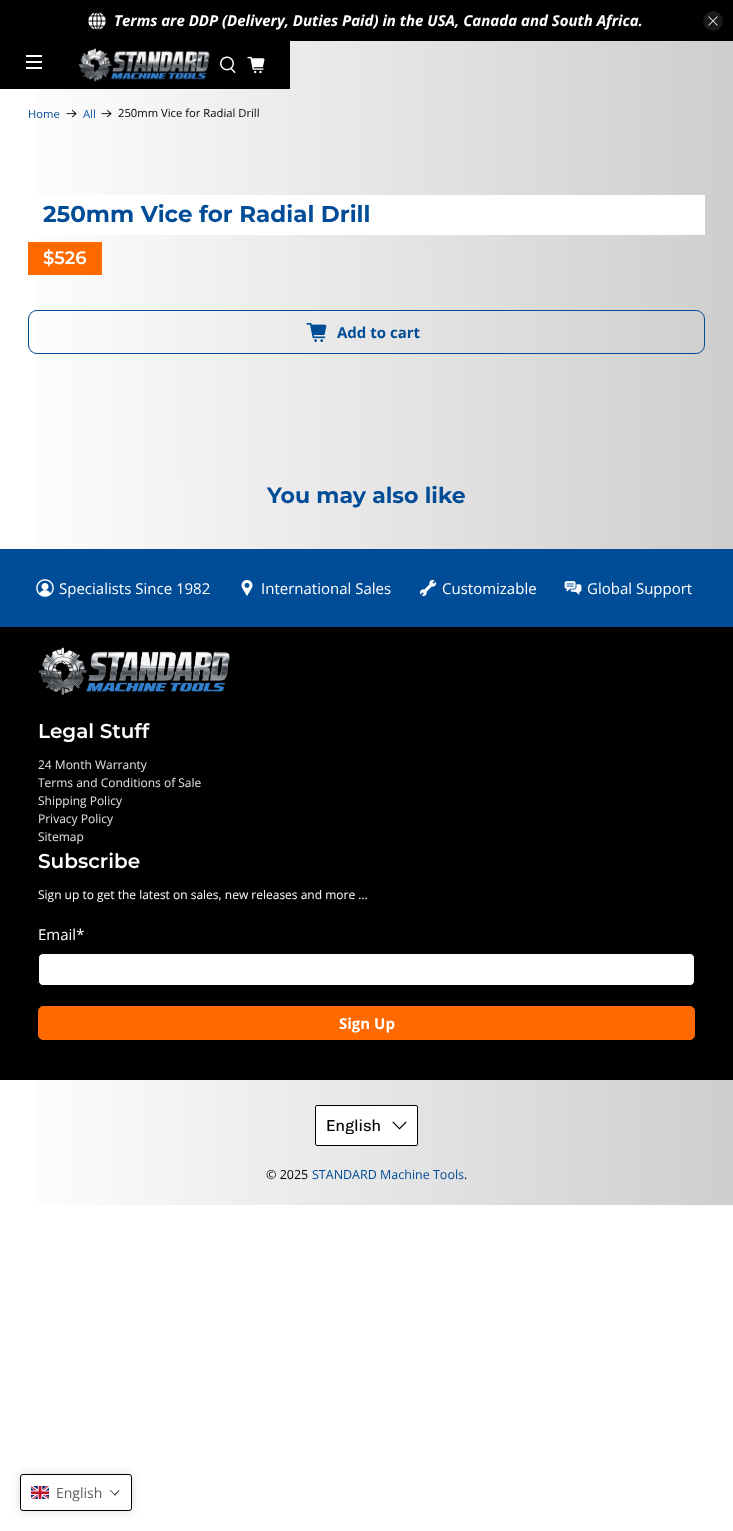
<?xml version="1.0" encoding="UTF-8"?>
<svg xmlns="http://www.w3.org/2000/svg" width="733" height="1531">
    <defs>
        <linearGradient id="g1" gradientUnits="userSpaceOnUse" x1="733" y1="602" x2="0" y2="603"><stop offset="0" stop-color="#CECECE"/><stop offset="1" stop-color="#FFFFFF"/></linearGradient>
        <filter id="blur1" x="-50%" y="-200%" width="200%" height="500%"><feGaussianBlur stdDeviation="5"/></filter>
    </defs>
    <rect width="100%" height="100%" fill="#FFFFFF"/>
    <rect x="37" y="41" width="696" height="1164" fill="url(#g1)"/>
    <rect x="0" y="0" width="733" height="41" fill="#000000"/>
    <image x="88" y="12" width="18" height="18" href="img_01.png"/>
    <text x="114" y="26" font-family="Open Sans" font-size="15" font-weight="700" font-style="italic" fill="#FFFFFF">Terms are DDP (Delivery, Duties Paid) in the USA, Canada and South Africa.</text>
    <circle cx="713" cy="21" r="10" fill="#1A1A1A"/>
    <image x="708" y="16" width="10" height="10" href="img_02.png"/>
    <rect x="0" y="41" width="290" height="48" fill="#000000"/>
    <rect x="26" y="55" width="16" height="2" fill="#FFFFFF"/>
    <rect x="26" y="61" width="16" height="2" fill="#FFFFFF"/>
    <rect x="26" y="67" width="16" height="2" fill="#FFFFFF"/>
    <image x="78" y="48" width="132" height="34" href="img_03.png"/>
    <image x="220" y="56" width="16" height="18" href="img_04.png"/>
    <image x="247" y="56" width="18" height="18" href="img_05.png"/>
    <text x="28" y="118" font-family="Open Sans" font-size="11.25" fill="#004C97">Home</text>
    <image x="66" y="110" width="11" height="8" href="img_06.png"/>
    <text x="83" y="118" font-family="Open Sans" font-size="11.25" fill="#004C97">All</text>
    <image x="101" y="110" width="11" height="8" href="img_07.png"/>
    <text x="118" y="117" font-family="Open Sans" font-size="11.25" fill="#000000">250mm Vice for Radial Drill</text>
    <rect x="37" y="195" width="668" height="40" fill="#FFFFFF"/>
    <text x="43" y="222" font-family="Montserrat" font-size="23" font-weight="700" fill="#004C97">250mm Vice for Radial Drill</text>
    <rect x="28" y="242" width="74" height="33" fill="#FF6A00"/>
    <text x="43" y="264" font-family="Montserrat" font-size="18" font-weight="100" fill="#FFFFFF">$526</text>
    <rect x="28.5" y="310.5" width="676" height="43" rx="8.5" fill="none" stroke="#004C97"/>
    <image x="306" y="323" width="21" height="19" href="img_08.png"/>
    <text x="337" y="338" font-family="Open Sans" font-size="15" font-weight="700" fill="#004C97">Add to cart</text>
    <text x="267" y="503" font-family="Montserrat" font-size="22" font-weight="700" fill="#004C97">You may also like</text>
    <rect x="0" y="549" width="733" height="78" fill="#004C97"/>
    <image x="36" y="579" width="18" height="18" href="img_09.png"/>
    <text x="59" y="594" font-family="Open Sans" font-size="15" fill="#FFFFFF">Specialists Since 1982</text>
    <image x="241" y="579" width="12" height="17" href="img_10.png"/>
    <text x="261" y="594" font-family="Open Sans" font-size="15" fill="#FFFFFF">International Sales</text>
    <image x="419" y="579" width="18" height="18" href="img_11.png"/>
    <text x="442" y="594" font-family="Open Sans" font-size="15" fill="#FFFFFF">Customizable</text>
    <image x="564" y="581" width="18" height="14" href="img_12.png"/>
    <text x="587" y="594" font-family="Open Sans" font-size="15" fill="#FFFFFF">Global Support</text>
    <rect x="0" y="627" width="733" height="453" fill="#000000"/>
    <image x="39" y="647" width="191" height="48" href="img_13.png"/>
    <text x="38" y="738" font-family="Montserrat" font-size="20" font-weight="100" fill="#FFFFFF">Legal Stuff</text>
    <text font-family="Open Sans" font-size="12" fill="#E3E3E3">
        <tspan x="38" y="769">24 Month Warranty</tspan>
        <tspan x="38" y="787">Terms and Conditions of Sale</tspan>
        <tspan x="38" y="805">Shipping Policy</tspan>
        <tspan x="38" y="823">Privacy Policy</tspan>
        <tspan x="38" y="841">Sitemap</tspan>
    </text>
    <text x="38" y="868" font-family="Montserrat" font-size="20" font-weight="100" fill="#FFFFFF">Subscribe</text>
    <text x="38" y="899" font-family="Open Sans" font-size="12" fill="#FFFFFF">Sign up to get the latest on sales, new releases and more …</text>
    <text x="38" y="940" font-family="Open Sans" font-size="15" fill="#FFFFFF">Email*</text>
    <rect x="38.5" y="953.5" width="656" height="32" rx="4.5" fill="#FFFFFF" stroke="#000000"/>
    <rect x="38.5" y="1006.5" width="656" height="33" rx="4.5" fill="#FF6A00" stroke="#FF6A00"/>
    <text x="339" y="1029" font-family="Open Sans" font-size="15" font-weight="700" fill="#FFFFFF">Sign Up</text>
    <rect x="315.5" y="1105.5" width="102" height="40" rx="1.5" fill="#FFFFFF" stroke="#000000"/>
    <rect x="316" y="1106" width="101" height="39" rx="2" fill="#FFFFFF"/>
    <text x="326" y="1131" font-family="Chivo" font-size="16" fill="#000000">English</text>
    <image x="392" y="1121" width="15" height="9" href="img_14.png"/>
    <text x="266" y="1179" font-family="Open Sans" font-size="12.5" fill="#000000">© 2025</text>
    <text x="312" y="1179" font-family="Open Sans" font-size="12.5" fill="#004C97">STANDARD Machine Tools</text>
    <text x="464" y="1179" font-family="Open Sans" font-size="12.5" fill="#000000">.</text>
    <rect x="20" y="1474" width="112" height="37" rx="3" fill="#000000" fill-opacity="0.15" filter="url(#blur1)"/>
    <rect x="20.5" y="1474.5" width="111" height="36" rx="2.5" fill="#FFFFFF" stroke="#000000"/>
    <image x="31" y="1486" width="18" height="13" href="img_15.png"/>
    <text x="56" y="1498" font-family="Open Sans" font-size="14" fill="#5C5C5C">English</text>
    <path d="M 119 1490 L 119.5 1490.5 L 115 1495.5 L 114 1495 Z" fill="#1A1A1A"/>
    <path d="M 110.5 1490 L 115.5 1495 L 115 1495.5 L 110 1490.5 Z" fill="#1A1A1A"/>
</svg>
